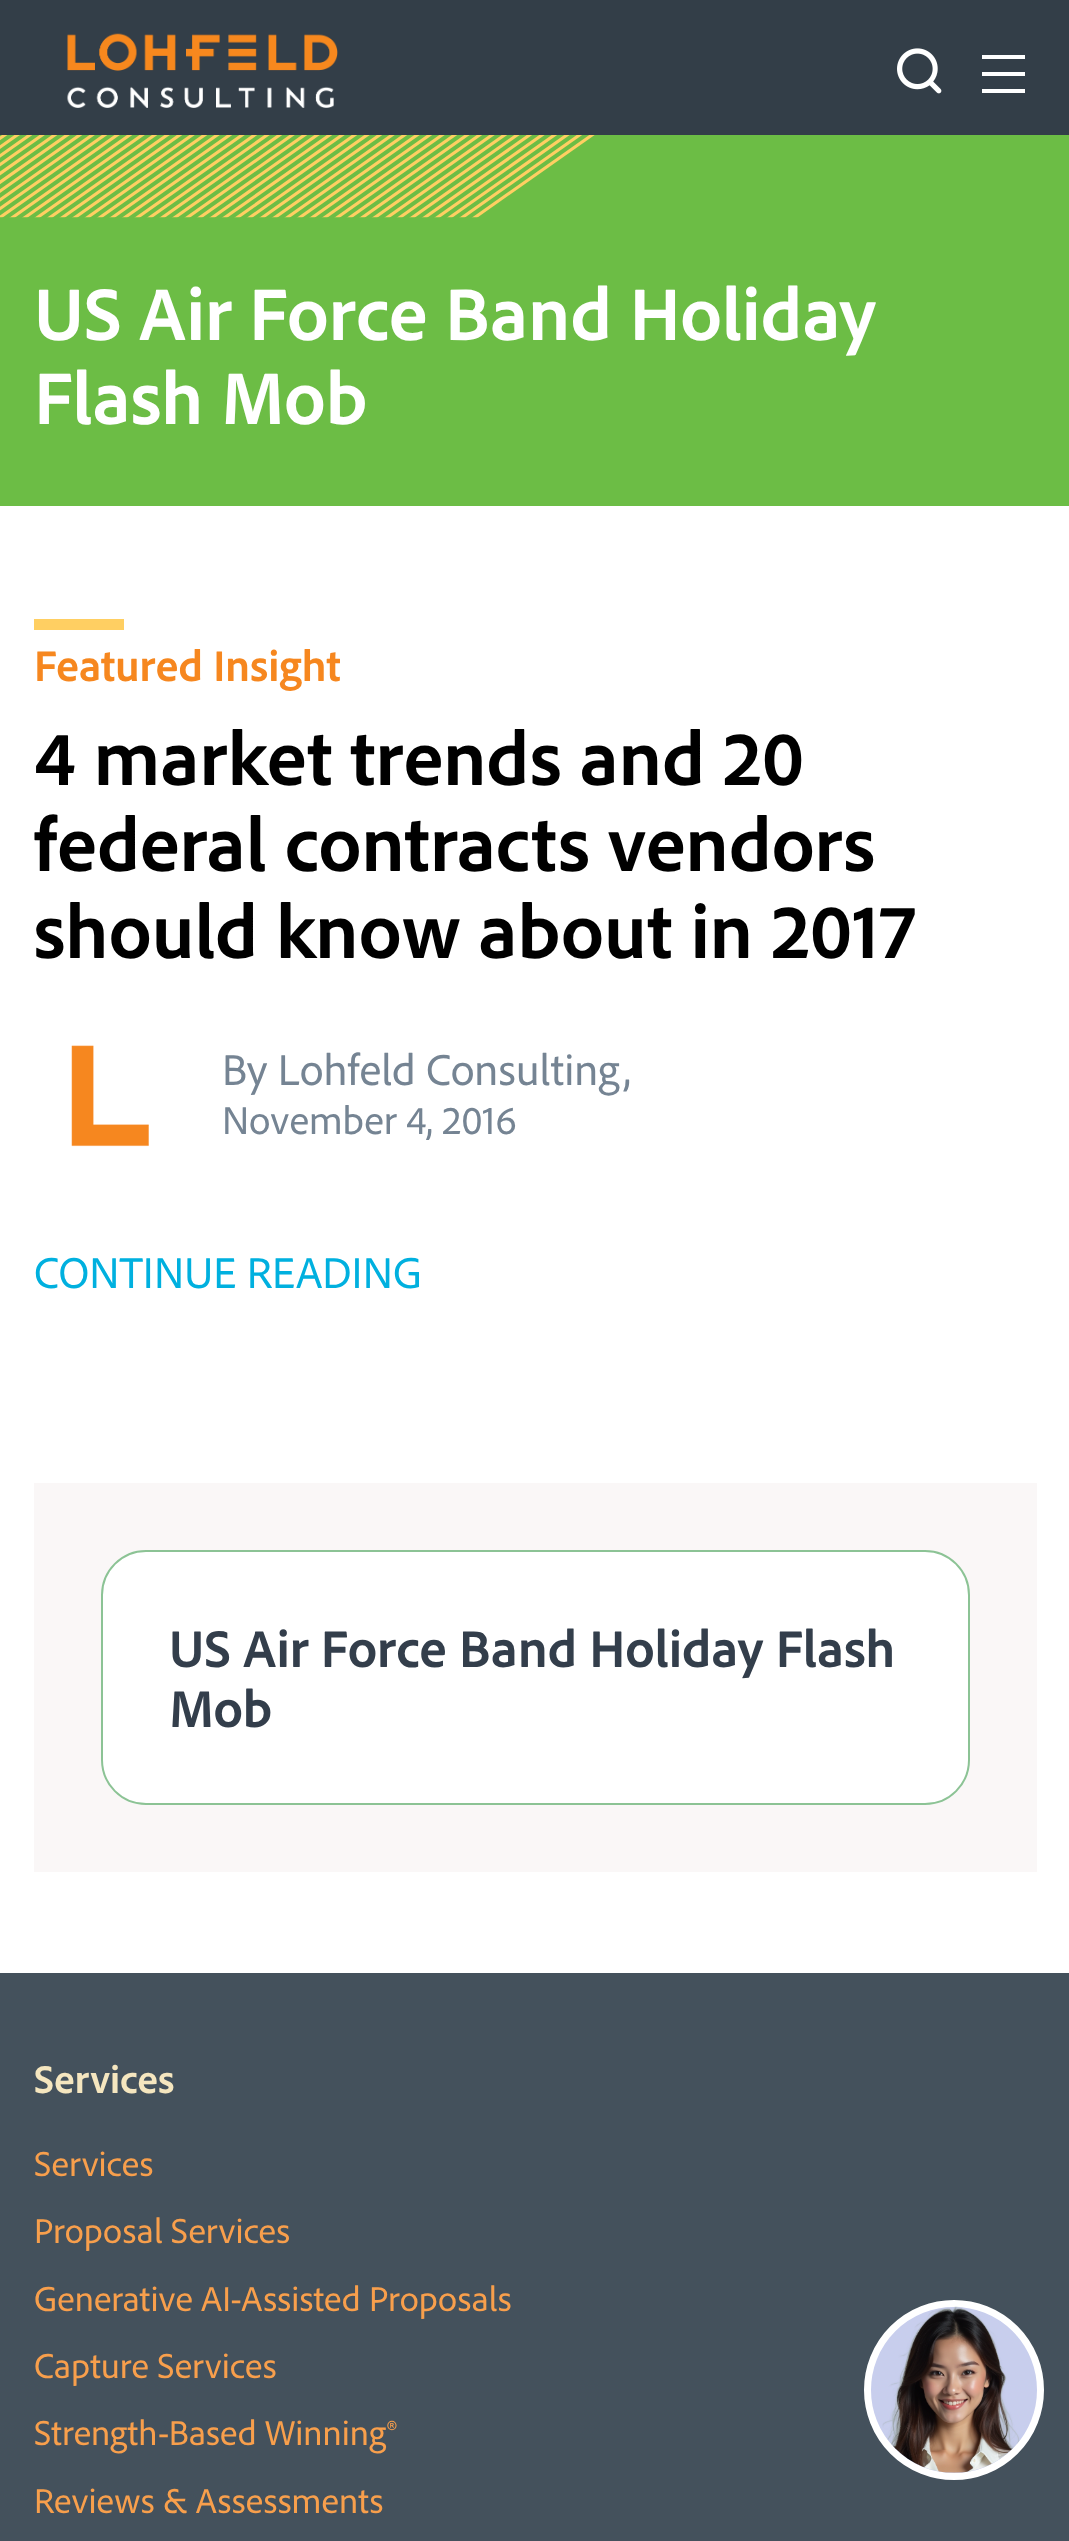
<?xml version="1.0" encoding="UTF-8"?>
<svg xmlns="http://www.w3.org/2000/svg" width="1069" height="2541">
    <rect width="100%" height="100%" fill="#FFFFFF"/>
    <rect x="0" y="0" width="1069" height="135" fill="#333E48"/>
    <image x="67" y="33" width="271" height="75" href="img_01.png"/>
    <image x="897" y="48" width="45" height="46" href="img_02.png"/>
    <path d="M 982 55 H 1025 V 59 H 982 Z M 982 72 H 1025 V 76 H 982 Z M 1025 89 H 982 V 93 H 1025 Z" fill="#FFFFFF" fill-rule="evenodd"/>
    <rect x="0" y="135" width="1069" height="371" fill="#6CBD45"/>
    <image x="0" y="135" width="595" height="83" href="img_03.png"/>
    <text font-family="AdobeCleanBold" font-size="76.5" font-weight="700" fill="#FFFFFF">
        <tspan x="34" y="340">US Air Force Band Holiday</tspan>
        <tspan x="34" y="424">Flash Mob</tspan>
    </text>
    <rect x="34" y="619" width="90" height="11" fill="#FFCF62"/>
    <text x="34" y="681" font-family="AdobeCleanBold" font-size="45" font-weight="700" fill="#F6871F">Featured Insight</text>
    <text font-family="AdobeCleanBold" font-size="78.75" font-weight="700" fill="#000000">
        <tspan x="34" y="785">4 market trends and 20</tspan>
        <tspan x="34" y="871">federal contracts vendors</tspan>
        <tspan x="34" y="958">should know about in 2017</tspan>
    </text>
    <image x="71" y="1045" width="78" height="102" href="img_04.png"/>
    <text x="222" y="1085" font-family="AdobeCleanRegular" font-size="45" fill="#758493">By Lohfeld Consulting,</text>
    <text x="222" y="1134" font-family="AdobeCleanRegular" font-size="40.5" fill="#758493">November 4, 2016</text>
    <text x="34" y="1288" font-family="AdobeCleanRegular" font-size="45" fill="#00B0DF">CONTINUE READING</text>
    <rect x="34" y="1483" width="1003" height="389" fill="#FAF7F7"/>
    <rect x="102" y="1551" width="867" height="253" rx="44" fill="#FFFFFF" stroke="#8CC395" stroke-width="2"/>
    <text font-family="AdobeCleanBold" font-size="54" font-weight="700" fill="#333E4B">
        <tspan x="169" y="1667">US Air Force Band Holiday Flash</tspan>
        <tspan x="169" y="1727">Mob</tspan>
    </text>
    <rect x="0" y="1973" width="1069" height="568" fill="#44515C"/>
    <text x="34" y="2093" font-family="AdobeCleanBold" font-size="40.5" font-weight="700" fill="#F5E6BF">Services</text>
    <text font-family="AdobeCleanRegular" font-size="36" fill="#F89F4C">
        <tspan x="34" y="2176">Services</tspan>
        <tspan x="34" y="2243">Proposal Services</tspan>
        <tspan x="34" y="2311">Generative AI-Assisted Proposals</tspan>
        <tspan x="34" y="2378">Capture Services</tspan>
        <tspan x="34" y="2445">Strength-Based Winning®</tspan>
        <tspan x="34" y="2513">Reviews &amp; Assessments</tspan>
    </text>
    <circle cx="954" cy="2390" r="86.5" fill="#C8CEED" stroke="#FFFFFF" stroke-width="7"/>
    <image x="882" y="2306" width="138" height="167" href="img_05.png"/>
</svg>
